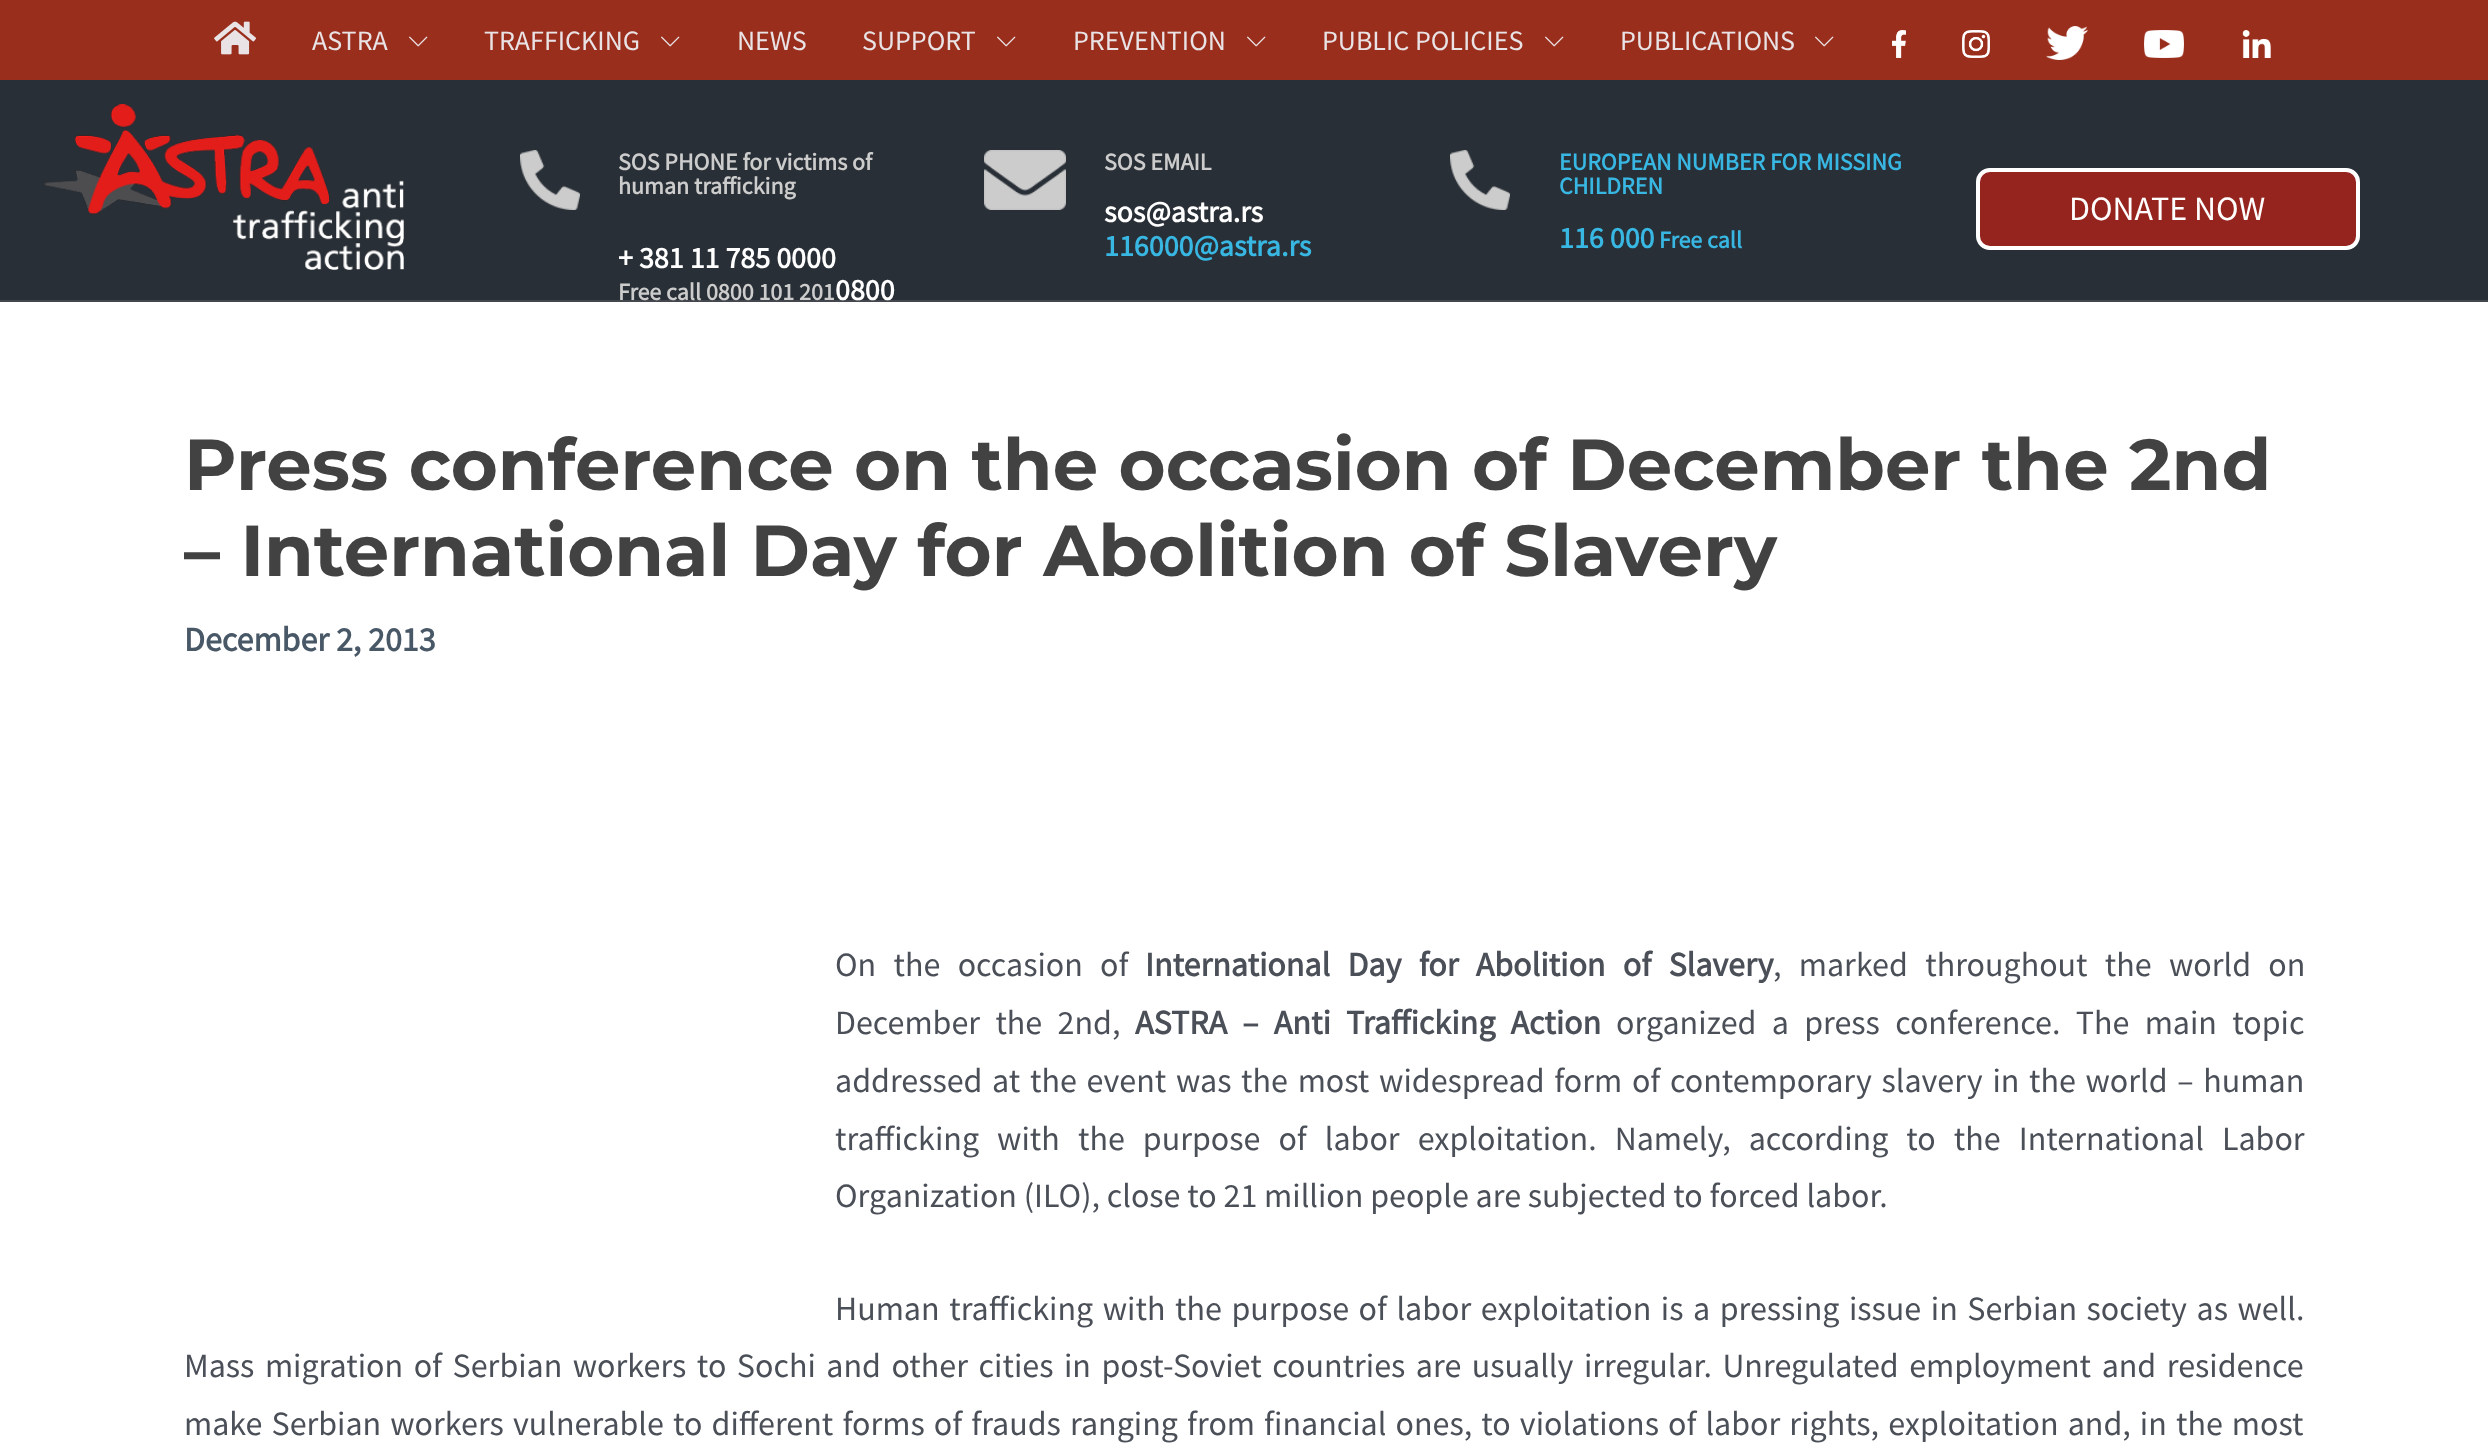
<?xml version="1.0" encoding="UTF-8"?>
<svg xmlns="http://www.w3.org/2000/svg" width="2488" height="1448">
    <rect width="100%" height="100%" fill="#FFFFFF"/>
    <rect x="0" y="0" width="2488" height="80" fill="#9A2E1C"/>
    <image x="214" y="21" width="42" height="34" href="img_01.png"/>
    <text x="312" y="50" font-family="Source Sans Pro" font-size="28" fill="#E9E3E6">ASTRA</text>
    <image x="409" y="36" width="19" height="11" href="img_02.png"/>
    <text x="484" y="50" font-family="Source Sans Pro" font-size="28" fill="#E9E3E6">TRAFFICKING</text>
    <image x="661" y="36" width="19" height="11" href="img_02.png"/>
    <text x="737" y="50" font-family="Source Sans Pro" font-size="28" fill="#E9E3E6">NEWS</text>
    <text x="862" y="50" font-family="Source Sans Pro" font-size="28" fill="#E9E3E6">SUPPORT</text>
    <image x="997" y="36" width="19" height="11" href="img_02.png"/>
    <text x="1073" y="50" font-family="Source Sans Pro" font-size="28" fill="#E9E3E6">PREVENTION</text>
    <image x="1247" y="36" width="19" height="11" href="img_02.png"/>
    <text x="1322" y="50" font-family="Source Sans Pro" font-size="28" fill="#E9E3E6">PUBLIC POLICIES</text>
    <image x="1545" y="36" width="19" height="11" href="img_02.png"/>
    <text x="1620" y="50" font-family="Source Sans Pro" font-size="28" fill="#E9E3E6">PUBLICATIONS</text>
    <image x="1815" y="36" width="19" height="11" href="img_02.png"/>
    <image x="1892" y="30" width="14" height="28" href="img_03.png"/>
    <image x="1962" y="30" width="28" height="28" href="img_04.png"/>
    <image x="2046" y="26" width="42" height="34" href="img_05.png"/>
    <image x="2144" y="30" width="40" height="28" href="img_06.png"/>
    <image x="2242" y="30" width="29" height="28" href="img_07.png"/>
    <rect x="0" y="80" width="2488" height="220" fill="#292F36"/>
    <rect x="0" y="300" width="2488" height="2" fill="#44484E"/>
    <image x="44" y="104" width="360" height="166" href="img_08.png"/>
    <image x="520" y="150" width="60" height="60" href="img_09.png"/>
    <text font-family="Source Sans Pro" font-size="24" font-weight="700" fill="#CCCCCC">
        <tspan x="618" y="170">SOS PHONE for victims of</tspan>
        <tspan x="618" y="194">human trafficking</tspan>
    </text>
    <text x="618" y="268" font-family="Source Sans Pro" font-size="30" font-weight="700" fill="#FFFFFF">+ 381 11 785 0000</text>
    <text x="618" y="300" font-family="Source Sans Pro" font-size="24" font-weight="700" fill="#CCCCCC">Free call 0800 101 201</text>
    <text x="835" y="300" font-family="Source Sans Pro" font-size="30" font-weight="700" fill="#FFFFFF">0800</text>
    <image x="984" y="150" width="82" height="60" href="img_10.png"/>
    <text x="1104" y="170" font-family="Source Sans Pro" font-size="24" font-weight="700" fill="#CCCCCC">SOS EMAIL</text>
    <text x="1104" y="222" font-family="Source Sans Pro" font-size="30" font-weight="700" fill="#FFFFFF">sos@astra.rs</text>
    <text x="1104" y="256" font-family="Source Sans Pro" font-size="30" font-weight="700" fill="#38B7E3">116000@astra.rs</text>
    <image x="1450" y="150" width="60" height="60" href="img_09.png"/>
    <text font-family="Source Sans Pro" font-size="24" font-weight="700" fill="#38B7E3">
        <tspan x="1559" y="170">EUROPEAN NUMBER FOR MISSING</tspan>
        <tspan x="1559" y="194">CHILDREN</tspan>
    </text>
    <text x="1559" y="248" font-family="Source Sans Pro" font-size="30" font-weight="700" fill="#38B7E3">116 000</text>
    <text x="1659" y="248" font-family="Source Sans Pro" font-size="24" font-weight="700" fill="#38B7E3">Free call</text>
    <rect x="1978" y="170" width="380" height="78" rx="12" fill="#96241E" stroke="#FFFFFF" stroke-width="4"/>
    <text x="2069" y="220" font-family="Source Sans Pro" font-size="34" fill="#FFFFFF">DONATE NOW</text>
    <text font-family="Montserrat" font-size="72" font-weight="700" fill="#424242">
        <tspan x="184" y="490">Press conference on the occasion of December the 2nd</tspan>
        <tspan x="184" y="576">– International Day for Abolition of Slavery</tspan>
    </text>
    <text x="184" y="651" font-family="Source Sans Pro" font-size="34" font-weight="700" fill="#495867">December 2, 2013</text>
    <text x="835" y="976" word-spacing="10.5" font-family="Source Sans Pro" font-size="34" fill="#4B4F58">On the occasion of</text>
    <text x="1145" y="976" word-spacing="10.5" font-family="Source Sans Pro" font-size="34" font-weight="700" fill="#4B4F58">International Day for Abolition of Slavery</text>
    <text x="1773" y="976" word-spacing="10.5" font-family="Source Sans Pro" font-size="34" fill="#4B4F58">, marked throughout the world on</text>
    <text x="835" y="1034" word-spacing="8.5" font-family="Source Sans Pro" font-size="34" fill="#4B4F58">December the 2nd,</text>
    <text x="1135" y="1034" word-spacing="8.5" font-family="Source Sans Pro" font-size="34" font-weight="700" fill="#4B4F58">ASTRA – Anti Trafficking Action</text>
    <text x="1616" y="1034" word-spacing="8.5" font-family="Source Sans Pro" font-size="34" fill="#4B4F58">organized a press conference. The main topic</text>
    <text font-family="Source Sans Pro" font-size="34" fill="#4B4F58">
        <tspan x="835" y="1092" word-spacing="2.9">addressed at the event was the most widespread form of contemporary slavery in the world – human</tspan>
        <tspan x="835" y="1150" word-spacing="11.25">trafficking with the purpose of labor exploitation. Namely, according to the International Labor</tspan>
        <tspan x="835" y="1207">Organization (ILO), close to 21 million people are subjected to forced labor.</tspan>
    </text>
    <text x="835" y="1320" word-spacing="2.75" font-family="Source Sans Pro" font-size="34" fill="#4B4F58">Human trafficking with the purpose of labor exploitation is a pressing issue in Serbian society as well.</text>
    <text font-family="Source Sans Pro" font-size="34" fill="#4B4F58">
        <tspan x="184" y="1377" word-spacing="3.75">Mass migration of Serbian workers to Sochi and other cities in post-Soviet countries are usually irregular. Unregulated employment and residence</tspan>
        <tspan x="184" y="1435" word-spacing="2.3">make Serbian workers vulnerable to different forms of frauds ranging from financial ones, to violations of labor rights, exploitation and, in the most</tspan>
    </text>
</svg>
